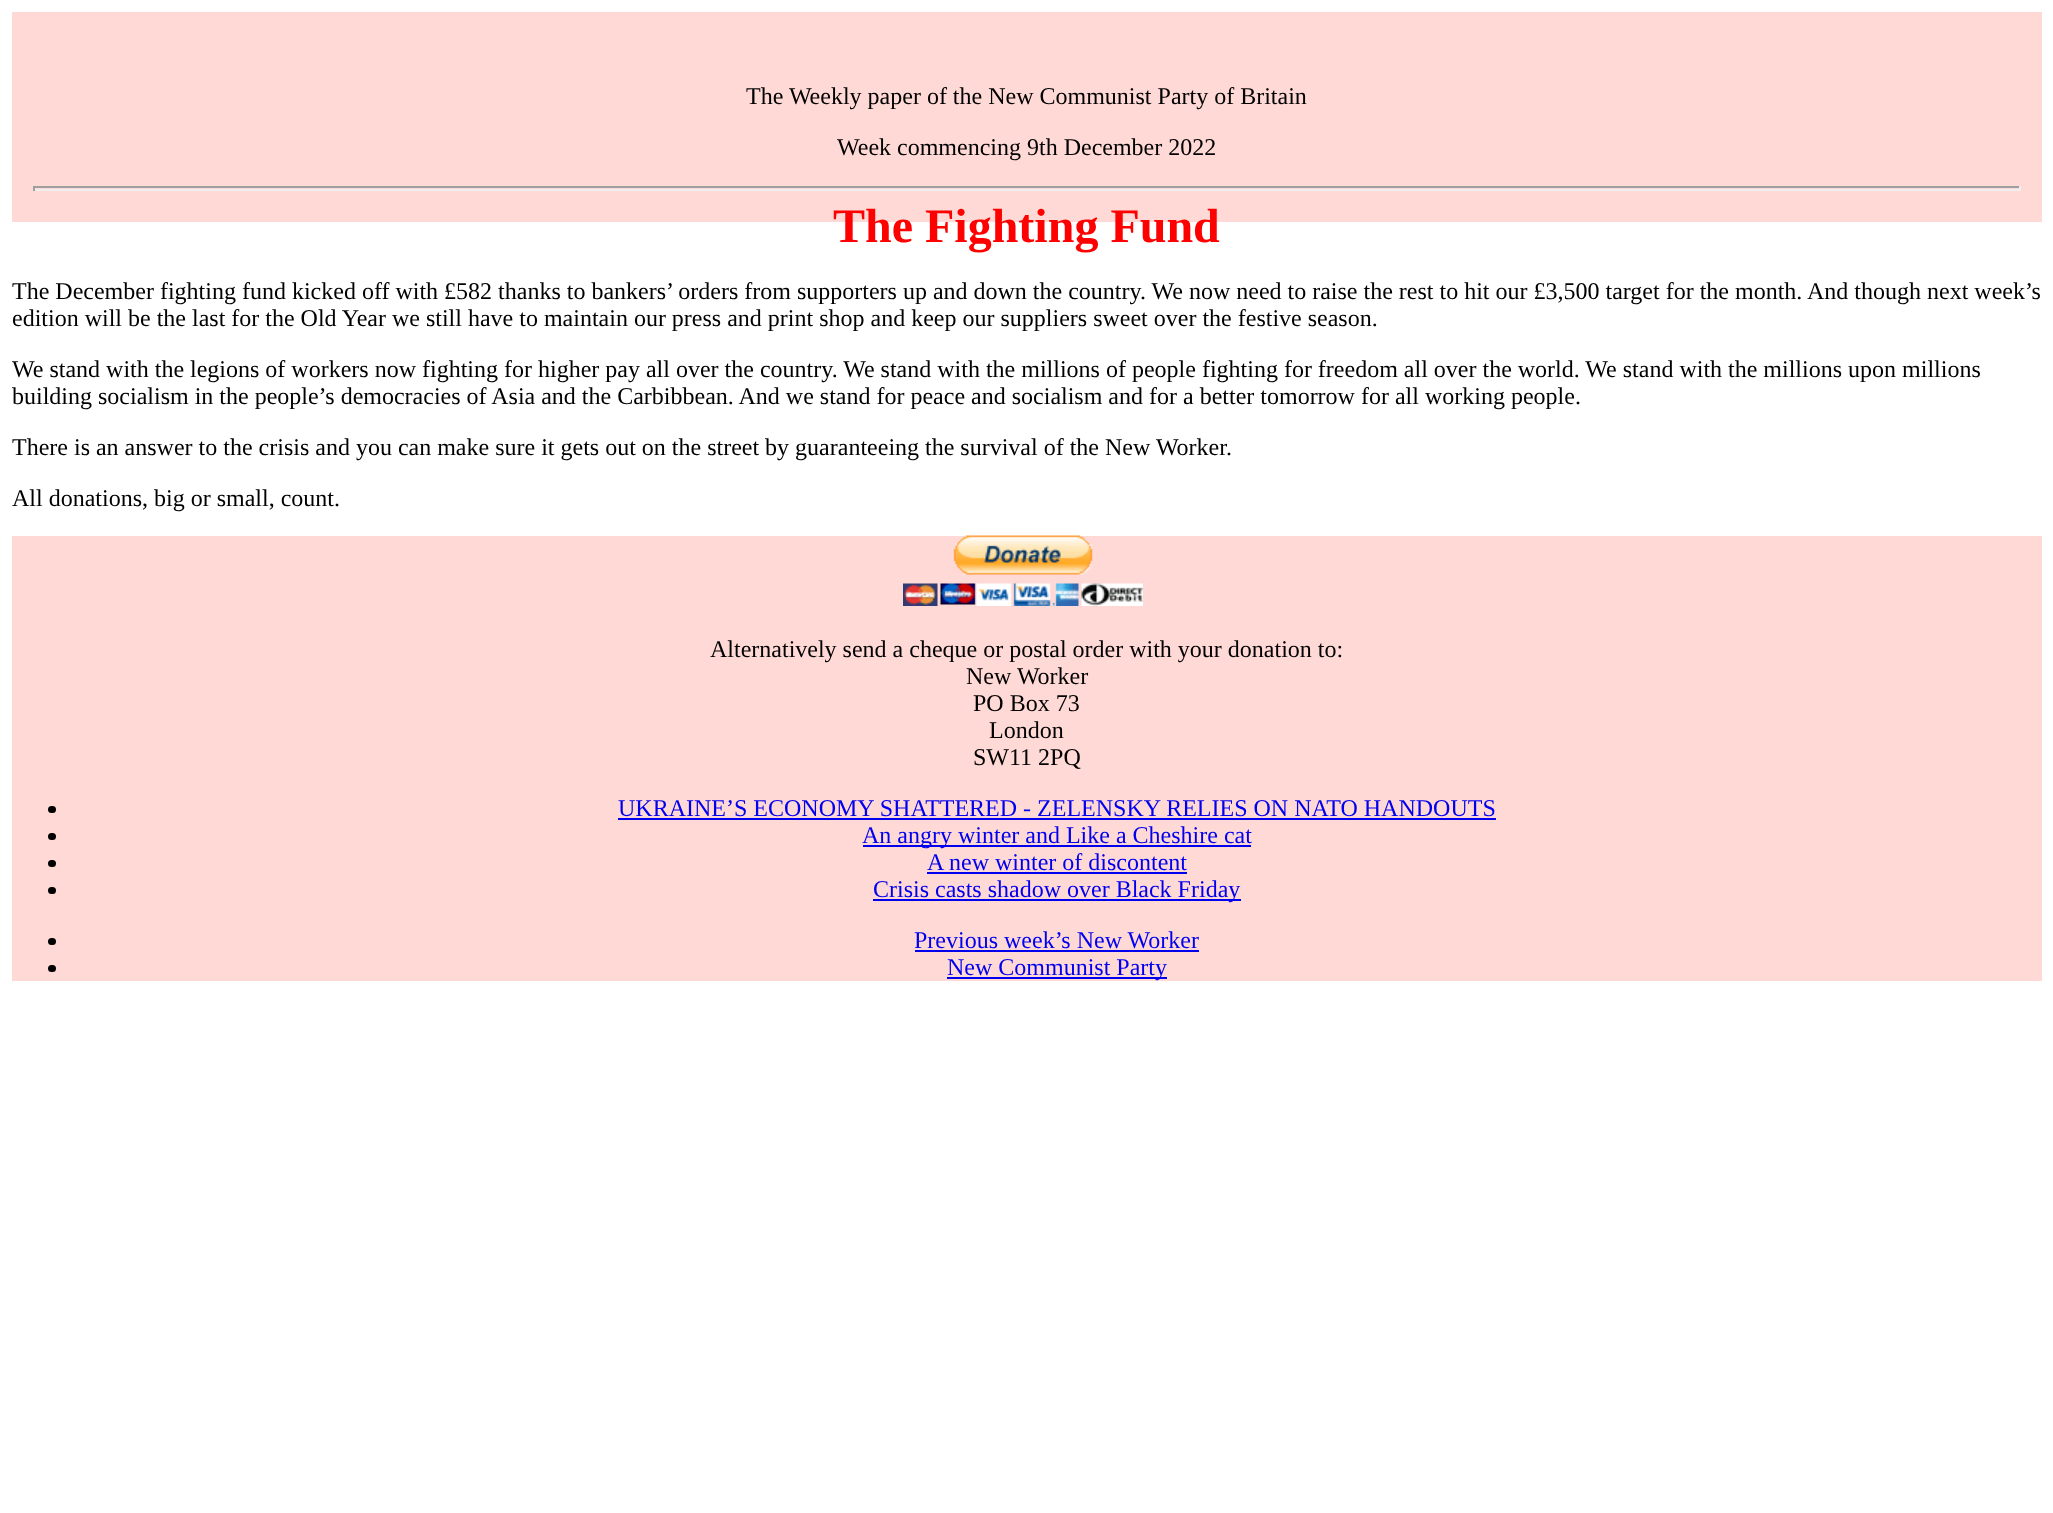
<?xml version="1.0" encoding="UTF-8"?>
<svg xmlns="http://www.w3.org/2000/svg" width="2053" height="1513">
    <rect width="100%" height="100%" fill="#FFFFFF"/>
    <rect x="12" y="12" width="2030" height="210" fill="#FFD9D6"/>
    <text x="746" y="104" font-family="Liberation Serif" font-size="24" fill="#000000">The Weekly paper of the New Communist Party of Britain</text>
    <text x="837" y="155" font-family="Liberation Serif" font-size="24" fill="#000000">Week commencing 9th December 2022</text>
    <rect x="33" y="186" width="1988" height="2" fill="#9F9F9F"/>
    <rect x="2019" y="186" width="2" height="5" fill="#EEEEEE"/>
    <rect x="33" y="189" width="1988" height="2" fill="#EEEEEE"/>
    <rect x="33" y="186" width="2" height="5" fill="#9F9F9F"/>
    <text x="833" y="242" font-family="Liberation Serif" font-size="48" font-weight="700" fill="#FF0000">The Fighting Fund</text>
    <text font-family="Liberation Serif" font-size="24" fill="#000000">
        <tspan x="12" y="299">The December fighting fund kicked off with £582 thanks to bankers’ orders from supporters up and down the country. We now need to raise the rest to hit our £3,500 target for the month. And though next week’s</tspan>
        <tspan x="12" y="326">edition will be the last for the Old Year we still have to maintain our press and print shop and keep our suppliers sweet over the festive season.</tspan>
    </text>
    <text font-family="Liberation Serif" font-size="24" fill="#000000">
        <tspan x="12" y="377">We stand with the legions of workers now fighting for higher pay all over the country. We stand with the millions of people fighting for freedom all over the world. We stand with the millions upon millions</tspan>
        <tspan x="12" y="404">building socialism in the people’s democracies of Asia and the Carbibbean. And we stand for peace and socialism and for a better tomorrow for all working people.</tspan>
    </text>
    <text x="12" y="455" font-family="Liberation Serif" font-size="24" fill="#000000">There is an answer to the crisis and you can make sure it gets out on the street by guaranteeing the survival of the New Worker.</text>
    <text x="12" y="506" font-family="Liberation Serif" font-size="24" fill="#000000">All donations, big or small, count.</text>
    <rect x="12" y="536" width="2030" height="445" fill="#FFD9D6"/>
    <image x="903" y="535" width="240" height="71" href="img_01.png"/>
    <text x="710" y="657" font-family="Liberation Serif" font-size="24" fill="#000000">Alternatively send a cheque or postal order with your donation to:</text>
    <text x="966" y="684" font-family="Liberation Serif" font-size="24" fill="#000000">New Worker</text>
    <text x="973" y="711" font-family="Liberation Serif" font-size="24" fill="#000000">PO Box 73</text>
    <text x="989" y="738" font-family="Liberation Serif" font-size="24" fill="#000000">London</text>
    <text x="973" y="765" font-family="Liberation Serif" font-size="24" fill="#000000">SW11 2PQ</text>
    <rect x="48" y="806" width="8" height="7" rx="3.5" fill="#000000"/>
    <text x="618" y="816" font-family="Liberation Serif" font-size="24" fill="#0000EE">UKRAINE’S ECONOMY SHATTERED - ZELENSKY RELIES ON NATO HANDOUTS</text>
    <rect x="618" y="818" width="878" height="2" fill="#0000EE"/>
    <rect x="48" y="833" width="8" height="7" rx="3.5" fill="#000000"/>
    <rect x="863" y="845" width="388" height="2" fill="#0000EE"/>
    <text x="862" y="843" font-family="Liberation Serif" font-size="24" fill="#0000EE">An angry winter and Like a Cheshire cat</text>
    <rect x="48" y="860" width="8" height="7" rx="3.5" fill="#000000"/>
    <text x="927" y="870" font-family="Liberation Serif" font-size="24" fill="#0000EE">A new winter of discontent</text>
    <rect x="927" y="872" width="260" height="2" fill="#0000EE"/>
    <rect x="48" y="887" width="8" height="7" rx="3.5" fill="#000000"/>
    <rect x="873" y="899" width="368" height="2" fill="#0000EE"/>
    <text x="873" y="897" font-family="Liberation Serif" font-size="24" fill="#0000EE">Crisis casts shadow over Black Friday</text>
    <rect x="48" y="938" width="8" height="7" rx="3.5" fill="#000000"/>
    <text x="914" y="948" font-family="Liberation Serif" font-size="24" fill="#0000EE">Previous week’s New Worker</text>
    <rect x="915" y="950" width="284" height="2" fill="#0000EE"/>
    <rect x="48" y="965" width="8" height="7" rx="3.5" fill="#000000"/>
    <rect x="947" y="977" width="220" height="2" fill="#0000EE"/>
    <text x="947" y="975" font-family="Liberation Serif" font-size="24" fill="#0000EE">New Communist Party</text>
</svg>
